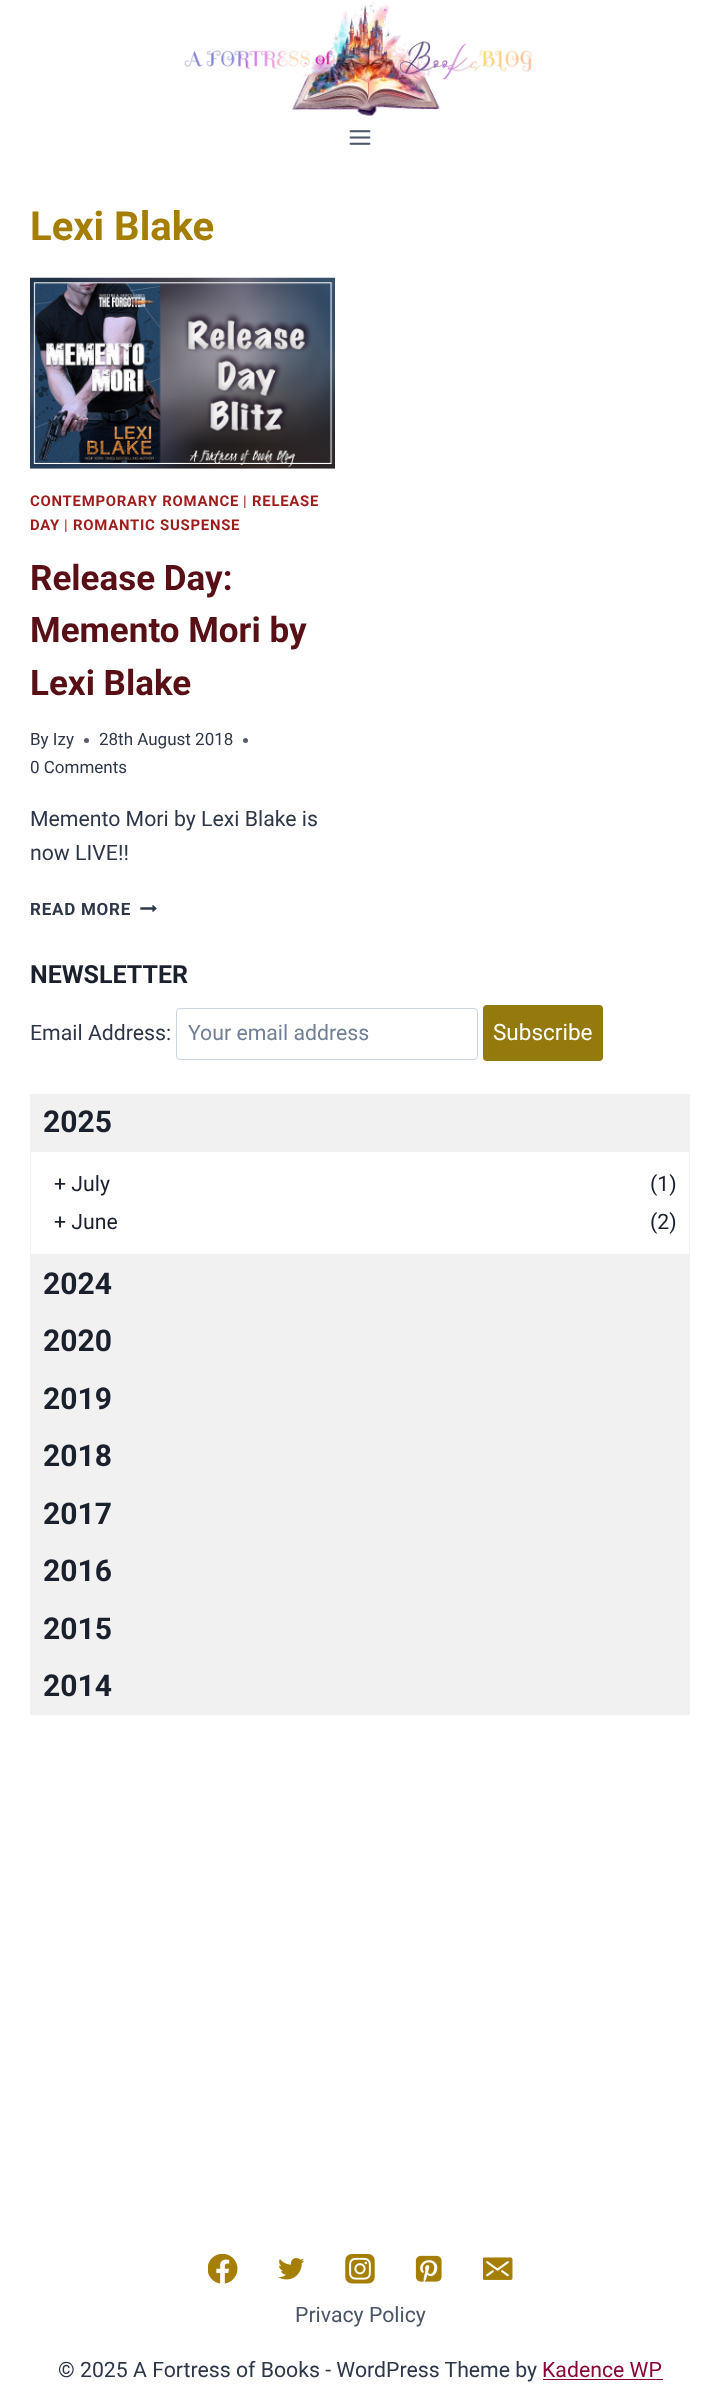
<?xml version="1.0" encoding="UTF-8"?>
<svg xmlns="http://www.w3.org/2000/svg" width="719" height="2408">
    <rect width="100%" height="100%" fill="#FFFFFF"/>
    <image x="184" y="2" width="348" height="115" href="img_01.png"/>
    <image x="349" y="130" width="22" height="15" href="img_02.png"/>
    <text x="30" y="240" font-family="Roboto" font-size="40" font-weight="700" fill="#A57E04">Lexi Blake</text>
    <image x="30" y="277" width="305" height="192" href="img_03.png"/>
    <text x="30" y="506" font-family="Roboto" font-size="14.9" font-weight="700" letter-spacing="0.75" fill="#9E1C1C">CONTEMPORARY ROMANCE</text>
    <text x="243" y="506" font-family="Roboto" font-size="14.9" letter-spacing="0.75" fill="#9E1C1C">|</text>
    <text x="252" y="506" font-family="Roboto" font-size="14.9" font-weight="700" letter-spacing="0.75" fill="#9E1C1C">RELEASE</text>
    <text x="30" y="530" font-family="Roboto" font-size="14.9" font-weight="700" letter-spacing="0.75" fill="#9E1C1C">DAY</text>
    <text x="64" y="530" font-family="Roboto" font-size="14.9" letter-spacing="0.75" fill="#9E1C1C">|</text>
    <text x="73" y="530" font-family="Roboto" font-size="14.9" font-weight="700" letter-spacing="0.75" fill="#9E1C1C">ROMANTIC SUSPENSE</text>
    <text font-family="Roboto" font-size="35" font-weight="700" fill="#581016">
        <tspan x="30" y="590">Release Day:</tspan>
        <tspan x="30" y="642">Memento Mori by</tspan>
        <tspan x="30" y="695">Lexi Blake</tspan>
    </text>
    <text x="30" y="745" font-family="Roboto" font-size="17" fill="#2D3748">By Izy</text>
    <circle cx="86.5" cy="740.5" r="2.5" fill="#575F6D"/>
    <text x="99" y="745" font-family="Roboto" font-size="17" fill="#2D3748">28th August 2018</text>
    <circle cx="245.5" cy="740.5" r="2.5" fill="#575F6D"/>
    <text x="30" y="773" font-family="Roboto" font-size="17" fill="#2D3748">0 Comments</text>
    <text font-family="Roboto" font-size="21.25" fill="#2D3748">
        <tspan x="30" y="826">Memento Mori by Lexi Blake is</tspan>
        <tspan x="30" y="860">now LIVE!!</tspan>
    </text>
    <text x="30" y="915" font-family="Roboto" font-size="17" font-weight="700" letter-spacing="0.75" fill="#2D3748">READ MORE</text>
    <image x="140" y="904" width="17" height="9" href="img_04.png"/>
    <text x="30" y="983" font-family="Roboto" font-size="25" font-weight="700" fill="#1A202C">NEWSLETTER</text>
    <text x="30" y="1040" font-family="Roboto" font-size="21.25" fill="#2D3748">Email Address:</text>
    <rect x="176.5" y="1008.5" width="301" height="51" rx="3.5" fill="none" stroke="#CBD5E0"/>
    <text x="188" y="1040" font-family="Roboto" font-size="21.25" fill="#718096">Your email address</text>
    <rect x="483" y="1005" width="120" height="56" rx="4" fill="#947A0D"/>
    <text x="493" y="1040" font-family="Roboto" font-size="22.5" fill="#FFFFFF">Subscribe</text>
    <rect x="30" y="1094" width="660" height="57" fill="#F1F1F1"/>
    <text x="43" y="1132" font-family="Roboto" font-size="30" font-weight="700" fill="#1A202C">2025</text>
    <rect x="30.5" y="1151.5" width="659" height="103" fill="none" stroke="#F1F1F1"/>
    <text x="54" y="1191" font-family="Roboto" font-size="21.25" fill="#1A202C">+ July</text>
    <text x="650" y="1191" font-family="Roboto" font-size="21.25" fill="#1A202C">(1)</text>
    <text x="54" y="1229" font-family="Roboto" font-size="21.25" fill="#1A202C">+ June</text>
    <text x="650" y="1229" font-family="Roboto" font-size="21.25" fill="#1A202C">(2)</text>
    <rect x="30" y="1255" width="660" height="460" fill="#F1F1F1"/>
    <text font-family="Roboto" font-size="30" font-weight="700" fill="#1A202C">
        <tspan x="43" y="1294">2024</tspan>
        <tspan x="43" y="1351">2020</tspan>
        <tspan x="43" y="1409">2019</tspan>
        <tspan x="43" y="1466">2018</tspan>
        <tspan x="43" y="1524">2017</tspan>
        <tspan x="43" y="1581">2016</tspan>
        <tspan x="43" y="1639">2015</tspan>
        <tspan x="43" y="1696">2014</tspan>
    </text>
    <image x="208" y="2254" width="30" height="30" href="img_05.png"/>
    <image x="278" y="2258" width="27" height="22" href="img_06.png"/>
    <image x="345" y="2254" width="30" height="30" href="img_07.png"/>
    <image x="415" y="2255" width="27" height="27" href="img_08.png"/>
    <image x="483" y="2257" width="30" height="23" href="img_09.png"/>
    <text x="295" y="2322" font-family="Roboto" font-size="21.25" fill="#4A5568">Privacy Policy</text>
    <text x="58" y="2377" font-family="Roboto" font-size="21.25" fill="#2D3748">© 2025 A Fortress of Books - WordPress Theme by</text>
    <text x="542" y="2377" font-family="Roboto" font-size="21.25" fill="#8A063A">Kadence WP</text>
    <rect x="543" y="2379" width="120" height="1" fill="#8A063A"/>
</svg>
